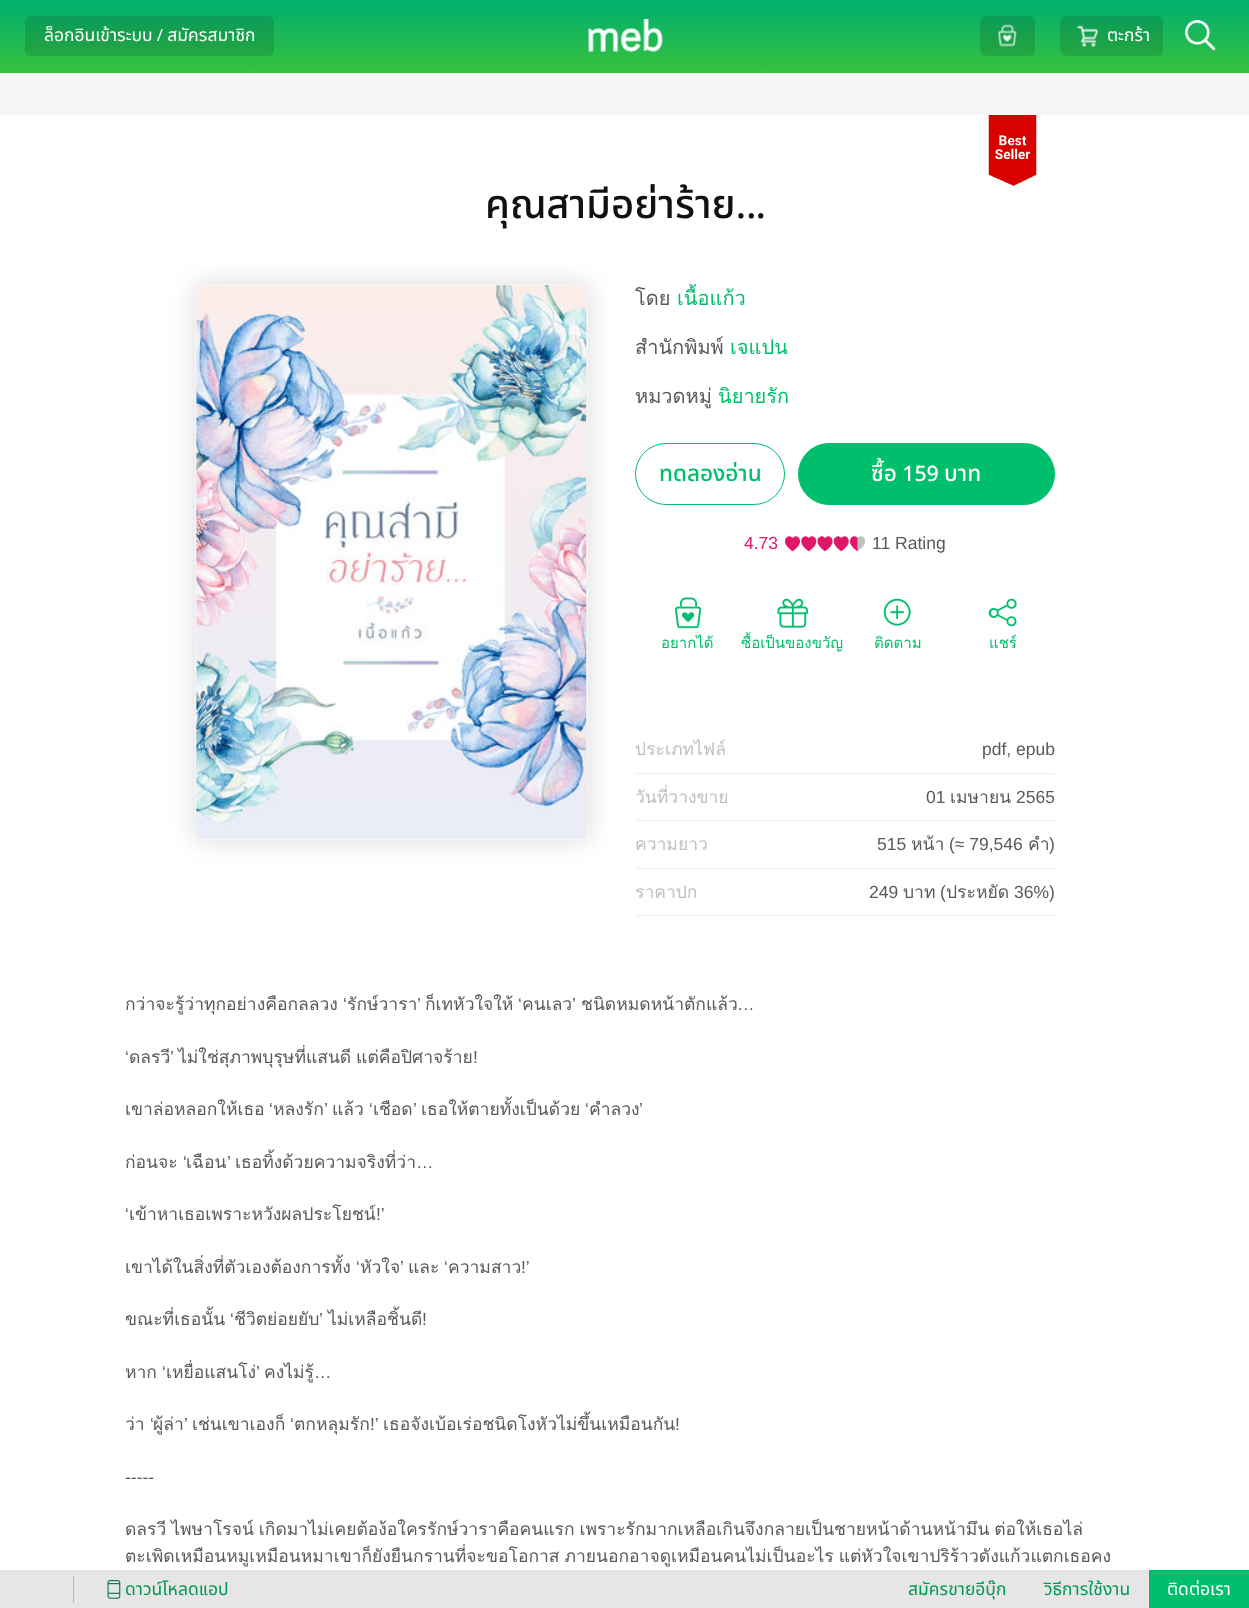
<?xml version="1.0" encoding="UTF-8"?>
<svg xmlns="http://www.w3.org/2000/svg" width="1249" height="1608">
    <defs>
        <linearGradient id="g1" gradientUnits="userSpaceOnUse" x1="625" y1="0" x2="625" y2="73"><stop offset="0" stop-color="#00AF70"/><stop offset="1" stop-color="#37C13D"/></linearGradient>
        <filter id="blur1" x="-50%" y="-200%" width="200%" height="500%"><feGaussianBlur stdDeviation="12.5"/></filter>
    </defs>
    <rect width="100%" height="100%" fill="#FFFFFF"/>
    <rect x="0" y="0" width="1249" height="73" fill="url(#g1)"/>
    <rect x="25" y="16" width="249" height="40" rx="6" fill="#000000" fill-opacity="0.12"/>
    <text x="44" y="41" font-family="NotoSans" font-size="17.5" fill="#FFFFFF">ล็อกอินเข้าระบบ / สมัครสมาชิก</text>
    <image x="588" y="19" width="75" height="33" href="img_01.png"/>
    <rect x="980" y="16" width="55" height="40" rx="6" fill="#000000" fill-opacity="0.12"/>
    <image x="998" y="24" width="19" height="23" href="img_02.png"/>
    <rect x="1060" y="16" width="103" height="40" rx="6" fill="#000000" fill-opacity="0.12"/>
    <image x="1077" y="25" width="22" height="23" href="img_03.png"/>
    <text x="1107" y="41" font-family="NotoSans" font-size="17.5" fill="#FFFFFF">ตะกร้า</text>
    <image x="1185" y="20" width="31" height="31" href="img_04.png"/>
    <rect x="0" y="73" width="1249" height="42" fill="#F6F6F6"/>
    <image x="988" y="115" width="49" height="72" href="img_05.png"/>
    <text x="485" y="218" font-family="NotoSans" font-size="40" font-weight="500" fill="#111111">คุณสามีอย่าร้าย…</text>
    <rect x="195" y="284" width="393" height="556" rx="4" fill="#000000" fill-opacity="0.15" filter="url(#blur1)"/>
    <rect x="195.5" y="284.5" width="392" height="555" rx="3.5" fill="none" stroke="#F6F6F6"/>
    <image x="196" y="285" width="391" height="554" href="img_06.png"/>
    <text x="635" y="305" font-family="Loma" font-size="20" fill="#5A5A5A">โดย</text>
    <text x="677" y="305" font-family="Loma" font-size="20" fill="#00BF6C">เนื้อแก้ว</text>
    <text x="635" y="354" font-family="Loma" font-size="20" fill="#5A5A5A">สำนักพิมพ์</text>
    <text x="730" y="354" font-family="Loma" font-size="20" fill="#00BF6C">เจแปน</text>
    <text x="635" y="403" font-family="Loma" font-size="20" fill="#5A5A5A">หมวดหมู่</text>
    <text x="718" y="403" font-family="Loma" font-size="20" fill="#00BF6C">นิยายรัก</text>
    <rect x="635.5" y="443.5" width="149" height="61" rx="30.5" fill="none" stroke="#00BF6C"/>
    <text x="659" y="481" font-family="NotoSans" font-size="22.5" font-weight="500" fill="#00BF6C">ทดลองอ่าน</text>
    <rect x="798.5" y="443.5" width="256" height="61" rx="30.5" fill="#00BF6C" stroke="#00BF6C"/>
    <text x="871" y="481" font-family="NotoSans" font-size="22.5" font-weight="500" fill="#FFFFFF">ซื้อ 159 บาท</text>
    <text x="744" y="549" font-family="Liberation Sans" font-size="17.5" fill="#E0166A">4.73</text>
    <image x="785" y="536" width="15" height="16" href="img_07.png"/>
    <image x="801" y="536" width="16" height="16" href="img_08.png"/>
    <image x="817" y="536" width="16" height="16" href="img_09.png"/>
    <image x="833" y="536" width="16" height="16" href="img_10.png"/>
    <image x="850" y="536" width="15" height="16" href="img_11.png"/>
    <text x="872" y="549" font-family="Liberation Sans" font-size="17.5" fill="#5A5A5A">11 Rating</text>
    <image x="675" y="597" width="27" height="32" href="img_12.png"/>
    <text x="661" y="648" font-family="Loma" font-size="15" fill="#00BF6C">อยากได้</text>
    <image x="777" y="598" width="32" height="30" href="img_13.png"/>
    <text x="741" y="648" font-family="Loma" font-size="15" fill="#00BF6C">ซื้อเป็นของขวัญ</text>
    <image x="883" y="598" width="28" height="28" href="img_14.png"/>
    <text x="874" y="648" font-family="Loma" font-size="15" fill="#00BF6C">ติดตาม</text>
    <image x="988" y="598" width="29" height="29" href="img_15.png"/>
    <text x="989" y="648" font-family="Loma" font-size="15" fill="#00BF6C">แชร์</text>
    <rect x="635" y="773" width="420" height="1" fill="#EEEEEE"/>
    <text x="635" y="755" font-family="Loma" font-size="17.5" fill="#C0C0C0">ประเภทไฟล์</text>
    <text x="982" y="755" font-family="Liberation Sans" font-size="17.5" fill="#5A5A5A">pdf, epub</text>
    <rect x="635" y="820" width="420" height="1" fill="#EEEEEE"/>
    <text x="635" y="803" font-family="Loma" font-size="17.5" fill="#C0C0C0">วันที่วางขาย</text>
    <text x="926" y="803" font-family="Liberation Sans" font-size="17.5" fill="#5A5A5A">01</text>
    <text x="950" y="803" font-family="Loma" font-size="17.5" fill="#5A5A5A">เมษายน</text>
    <text x="1016" y="803" font-family="Liberation Sans" font-size="17.5" fill="#5A5A5A">2565</text>
    <rect x="635" y="868" width="420" height="1" fill="#EEEEEE"/>
    <text x="635" y="850" font-family="Loma" font-size="17.5" fill="#C0C0C0">ความยาว</text>
    <text x="877" y="850" font-family="Liberation Sans" font-size="17.5" fill="#5A5A5A">515</text>
    <text x="911" y="850" font-family="Loma" font-size="17.5" fill="#5A5A5A">หน้า</text>
    <text x="949" y="850" font-family="Liberation Sans" font-size="17.5" fill="#5A5A5A">(≈ 79,546</text>
    <text x="1028" y="850" font-family="Loma" font-size="17.5" fill="#5A5A5A">คำ</text>
    <text x="1049" y="850" font-family="Liberation Sans" font-size="17.5" fill="#5A5A5A">)</text>
    <rect x="635" y="915" width="420" height="1" fill="#EEEEEE"/>
    <text x="635" y="898" font-family="Loma" font-size="17.5" fill="#C0C0C0">ราคาปก</text>
    <text x="869" y="898" font-family="Liberation Sans" font-size="17.5" fill="#5A5A5A">249</text>
    <text x="903" y="898" font-family="Loma" font-size="17.5" fill="#5A5A5A">บาท</text>
    <text x="940" y="898" font-family="Liberation Sans" font-size="17.5" fill="#5A5A5A">(</text>
    <text x="946" y="898" font-family="Loma" font-size="17.5" fill="#5A5A5A">ประหยัด</text>
    <text x="1014" y="898" font-family="Liberation Sans" font-size="17.5" fill="#5A5A5A">36%)</text>
    <text x="125" y="1010" font-family="Loma" font-size="17.5" fill="#5A5A5A">กว่าจะรู้ว่าทุกอย่างคือกลลวง</text>
    <text x="343" y="1010" font-family="Liberation Sans" font-size="17.5" fill="#5A5A5A">‘</text>
    <text x="347" y="1010" font-family="Loma" font-size="17.5" fill="#5A5A5A">รักษ์วารา</text>
    <text x="417" y="1010" font-family="Liberation Sans" font-size="17.5" fill="#5A5A5A">’</text>
    <text x="425" y="1010" font-family="Loma" font-size="17.5" fill="#5A5A5A">ก็เทหัวใจให้</text>
    <text x="581" y="1010" font-family="Loma" font-size="17.5" fill="#5A5A5A">ชนิดหมดหน้าตักแล้ว</text>
    <text x="518" y="1010" font-family="Liberation Sans" font-size="17.5" fill="#5A5A5A">‘</text>
    <text x="572" y="1010" font-family="Liberation Sans" font-size="17.5" fill="#5A5A5A">’</text>
    <text x="522" y="1010" font-family="Loma" font-size="17.5" fill="#5A5A5A">คนเลว</text>
    <text x="737" y="1010" font-family="Liberation Sans" font-size="17.5" fill="#5A5A5A">…</text>
    <text x="125" y="1063" font-family="Liberation Sans" font-size="17.5" fill="#5A5A5A">‘</text>
    <text x="129" y="1063" font-family="Loma" font-size="17.5" fill="#5A5A5A">ดลรวี</text>
    <text x="170" y="1063" font-family="Liberation Sans" font-size="17.5" fill="#5A5A5A">’</text>
    <text x="178" y="1063" word-spacing="-1" font-family="Loma" font-size="17.5" fill="#5A5A5A">ไม่ใช่สุภาพบุรุษที่แสนดี แต่คือปิศาจร้าย</text>
    <text x="473" y="1063" font-family="Liberation Sans" font-size="17.5" fill="#5A5A5A">!</text>
    <text x="125" y="1115" font-family="Loma" font-size="17.5" fill="#5A5A5A">เขาล่อหลอกให้เธอ</text>
    <text x="269" y="1115" font-family="Liberation Sans" font-size="17.5" fill="#5A5A5A">‘</text>
    <text x="273" y="1115" font-family="Loma" font-size="17.5" fill="#5A5A5A">หลงรัก</text>
    <text x="324" y="1115" font-family="Liberation Sans" font-size="17.5" fill="#5A5A5A">’</text>
    <text x="332" y="1115" font-family="Loma" font-size="17.5" fill="#5A5A5A">แล้ว</text>
    <text x="369" y="1115" font-family="Liberation Sans" font-size="17.5" fill="#5A5A5A">‘</text>
    <text x="373" y="1115" font-family="Loma" font-size="17.5" fill="#5A5A5A">เชือด</text>
    <text x="421" y="1115" font-family="Loma" font-size="17.5" fill="#5A5A5A">เธอให้ตายทั้งเป็นด้วย</text>
    <text x="585" y="1115" font-family="Liberation Sans" font-size="17.5" fill="#5A5A5A">‘</text>
    <text x="589" y="1115" font-family="Loma" font-size="17.5" fill="#5A5A5A">คำลวง</text>
    <text x="413" y="1115" font-family="Liberation Sans" font-size="17.5" fill="#5A5A5A">’</text>
    <text x="639" y="1115" font-family="Liberation Sans" font-size="17.5" fill="#5A5A5A">’</text>
    <text x="125" y="1168" font-family="Loma" font-size="17.5" fill="#5A5A5A">ก่อนจะ</text>
    <text x="183" y="1168" font-family="Liberation Sans" font-size="17.5" fill="#5A5A5A">‘</text>
    <text x="186" y="1168" font-family="Loma" font-size="17.5" fill="#5A5A5A">เฉือน</text>
    <text x="235" y="1168" font-family="Loma" font-size="17.5" fill="#5A5A5A">เธอทิ้งด้วยความจริงที่ว่า</text>
    <text x="227" y="1168" font-family="Liberation Sans" font-size="17.5" fill="#5A5A5A">’</text>
    <text x="416" y="1168" font-family="Liberation Sans" font-size="17.5" fill="#5A5A5A">…</text>
    <text x="125" y="1220" font-family="Liberation Sans" font-size="17.5" fill="#5A5A5A">‘</text>
    <text x="129" y="1220" font-family="Loma" font-size="17.5" fill="#5A5A5A">เข้าหาเธอเพราะหวังผลประโยชน์</text>
    <text x="376" y="1220" font-family="Liberation Sans" font-size="17.5" fill="#5A5A5A">!’</text>
    <text x="125" y="1273" font-family="Loma" font-size="17.5" fill="#5A5A5A">เขาได้ในสิ่งที่ตัวเองต้องการทั้ง</text>
    <text x="356" y="1273" font-family="Liberation Sans" font-size="17.5" fill="#5A5A5A">‘</text>
    <text x="360" y="1273" font-family="Loma" font-size="17.5" fill="#5A5A5A">หัวใจ</text>
    <text x="400" y="1273" font-family="Liberation Sans" font-size="17.5" fill="#5A5A5A">’</text>
    <text x="408" y="1273" font-family="Loma" font-size="17.5" fill="#5A5A5A">และ</text>
    <text x="444" y="1273" font-family="Liberation Sans" font-size="17.5" fill="#5A5A5A">‘</text>
    <text x="448" y="1273" font-family="Loma" font-size="17.5" fill="#5A5A5A">ความสาว</text>
    <text x="521" y="1273" font-family="Liberation Sans" font-size="17.5" fill="#5A5A5A">!’</text>
    <text x="125" y="1325" font-family="Loma" font-size="17.5" fill="#5A5A5A">ขณะที่เธอนั้น</text>
    <text x="230" y="1325" font-family="Liberation Sans" font-size="17.5" fill="#5A5A5A">‘</text>
    <text x="234" y="1325" font-family="Loma" font-size="17.5" fill="#5A5A5A">ชีวิตย่อยยับ</text>
    <text x="328" y="1325" font-family="Loma" font-size="17.5" fill="#5A5A5A">ไม่เหลือชิ้นดี</text>
    <text x="319" y="1325" font-family="Liberation Sans" font-size="17.5" fill="#5A5A5A">’</text>
    <text x="422" y="1325" font-family="Liberation Sans" font-size="17.5" fill="#5A5A5A">!</text>
    <text x="162" y="1378" font-family="Liberation Sans" font-size="17.5" fill="#5A5A5A">‘</text>
    <text x="166" y="1378" font-family="Loma" font-size="17.5" fill="#5A5A5A">เหยื่อแสนโง่</text>
    <text x="256" y="1378" font-family="Liberation Sans" font-size="17.5" fill="#5A5A5A">’</text>
    <text x="264" y="1378" font-family="Loma" font-size="17.5" fill="#5A5A5A">คงไม่รู้</text>
    <text x="125" y="1378" font-family="Loma" font-size="17.5" fill="#5A5A5A">หาก</text>
    <text x="314" y="1378" font-family="Liberation Sans" font-size="17.5" fill="#5A5A5A">…</text>
    <text x="125" y="1430" font-family="Loma" font-size="17.5" fill="#5A5A5A">ว่า</text>
    <text x="150" y="1430" font-family="Liberation Sans" font-size="17.5" fill="#5A5A5A">‘</text>
    <text x="153" y="1430" font-family="Loma" font-size="17.5" fill="#5A5A5A">ผู้ล่า</text>
    <text x="192" y="1430" font-family="Loma" font-size="17.5" fill="#5A5A5A">เช่นเขาเองก็</text>
    <text x="294" y="1430" font-family="Loma" font-size="17.5" fill="#5A5A5A">ตกหลุมรัก</text>
    <text x="383" y="1430" font-family="Loma" font-size="17.5" fill="#5A5A5A">เธอจังเบ้อเร่อชนิดโงหัวไม่ขึ้นเหมือนกัน</text>
    <text x="184" y="1430" font-family="Liberation Sans" font-size="17.5" fill="#5A5A5A">’</text>
    <text x="290" y="1430" font-family="Liberation Sans" font-size="17.5" fill="#5A5A5A">‘</text>
    <text x="370" y="1430" font-family="Liberation Sans" font-size="17.5" fill="#5A5A5A">!’</text>
    <text x="675" y="1430" font-family="Liberation Sans" font-size="17.5" fill="#5A5A5A">!</text>
    <text x="125" y="1483" font-family="Liberation Sans" font-size="17.5" fill="#5A5A5A">-----</text>
    <text font-family="Loma" font-size="17.5" fill="#5A5A5A">
        <tspan x="125" y="1535" word-spacing="-1">ดลรวี ไพษาโรจน์ เกิดมาไม่เคยต้อง้อใครรักษ์วาราคือคนแรก เพราะรักมากเหลือเกินจึงกลายเป็นชายหน้าด้านหน้ามึน ต่อให้เธอไล่</tspan>
        <tspan x="125" y="1562" word-spacing="-1">ตะเพิดเหมือนหมูเหมือนหมาเขาก็ยังยืนกรานที่จะขอโอกาส ภายนอกอาจดูเหมือนคนไม่เป็นอะไร แต่หัวใจเขาปริร้าวดังแก้วแตกเธอคง</tspan>
    </text>
    <rect x="0" y="1570" width="1149" height="38" fill="#E6E6E6"/>
    <rect x="73" y="1576" width="1" height="27" fill="#B8B8B8"/>
    <image x="107" y="1580" width="14" height="19" href="img_16.png"/>
    <text x="125" y="1595" font-family="NotoSans" font-size="17.5" fill="#009956">ดาวน์โหลดแอป</text>
    <text x="908" y="1595" font-family="NotoSans" font-size="17.5" fill="#009956">สมัครขายอีบุ๊ก</text>
    <text x="1044" y="1595" font-family="NotoSans" font-size="17.5" fill="#009956">วิธีการใช้งาน</text>
    <rect x="1149" y="1570" width="100" height="38" fill="#00BF6C"/>
    <text x="1167" y="1595" font-family="NotoSans" font-size="17.5" fill="#FFFFFF">ติดต่อเรา</text>
</svg>
